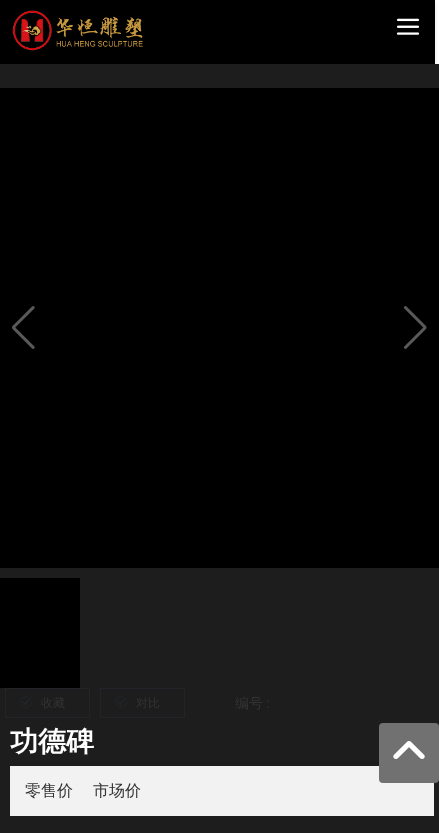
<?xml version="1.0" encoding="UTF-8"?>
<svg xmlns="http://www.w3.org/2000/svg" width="439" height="833">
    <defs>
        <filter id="blur1" x="-50%" y="-200%" width="200%" height="500%"><feGaussianBlur stdDeviation="2"/></filter>
    </defs>
    <rect width="100%" height="100%" fill="#FFFFFF"/>
    <rect x="0" y="3" width="435" height="64" fill="#000000" fill-opacity="0.1" filter="url(#blur1)"/>
    <rect x="0" y="0" width="435" height="64" fill="#000000"/>
    <image x="12" y="10" width="131" height="41" href="img_01.png"/>
    <image x="396" y="18" width="24" height="17" href="img_02.png"/>
    <rect x="0" y="64" width="439" height="769" fill="#1D1D1D"/>
    <rect x="0" y="88" width="439" height="480" fill="#000000"/>
    <image x="12" y="306" width="23" height="43" href="img_03.png"/>
    <image x="403" y="306" width="24" height="43" href="img_04.png"/>
    <rect x="0" y="578" width="80" height="110" fill="#000000"/>
    <rect x="5.5" y="688.5" width="84" height="29" fill="none" stroke="#212529"/>
    <image x="20" y="696" width="12" height="12" href="img_05.png"/>
    <text x="41" y="707" font-family="WenQuanYi Zen Hei" font-size="12" font-weight="500" fill="#333333">收藏</text>
    <rect x="100.5" y="688.5" width="84" height="29" fill="none" stroke="#212529"/>
    <image x="115" y="696" width="12" height="12" href="img_05.png"/>
    <text x="136" y="707" font-family="WenQuanYi Zen Hei" font-size="12" font-weight="500" fill="#333333">对比</text>
    <text x="235" y="708" font-family="WenQuanYi Zen Hei" font-size="14" font-weight="500" fill="#333333">编号</text>
    <text x="266" y="708" font-family="Roboto" font-size="14" fill="#333333">:</text>
    <text x="10" y="751" font-family="WenQuanYi Zen Hei" font-size="28" font-weight="700" fill="#FFFFFF">功德碑</text>
    <rect x="10" y="766" width="424" height="50" fill="#F2F2F2"/>
    <text x="25" y="796" font-family="WenQuanYi Zen Hei" font-size="16" font-weight="500" fill="#333333">零售价</text>
    <text x="93" y="796" font-family="WenQuanYi Zen Hei" font-size="16" font-weight="500" fill="#333333">市场价</text>
    <rect x="379" y="723" width="60" height="60" rx="4" fill="#717171"/>
    <image x="393" y="741" width="32" height="18" href="img_06.png"/>
</svg>
